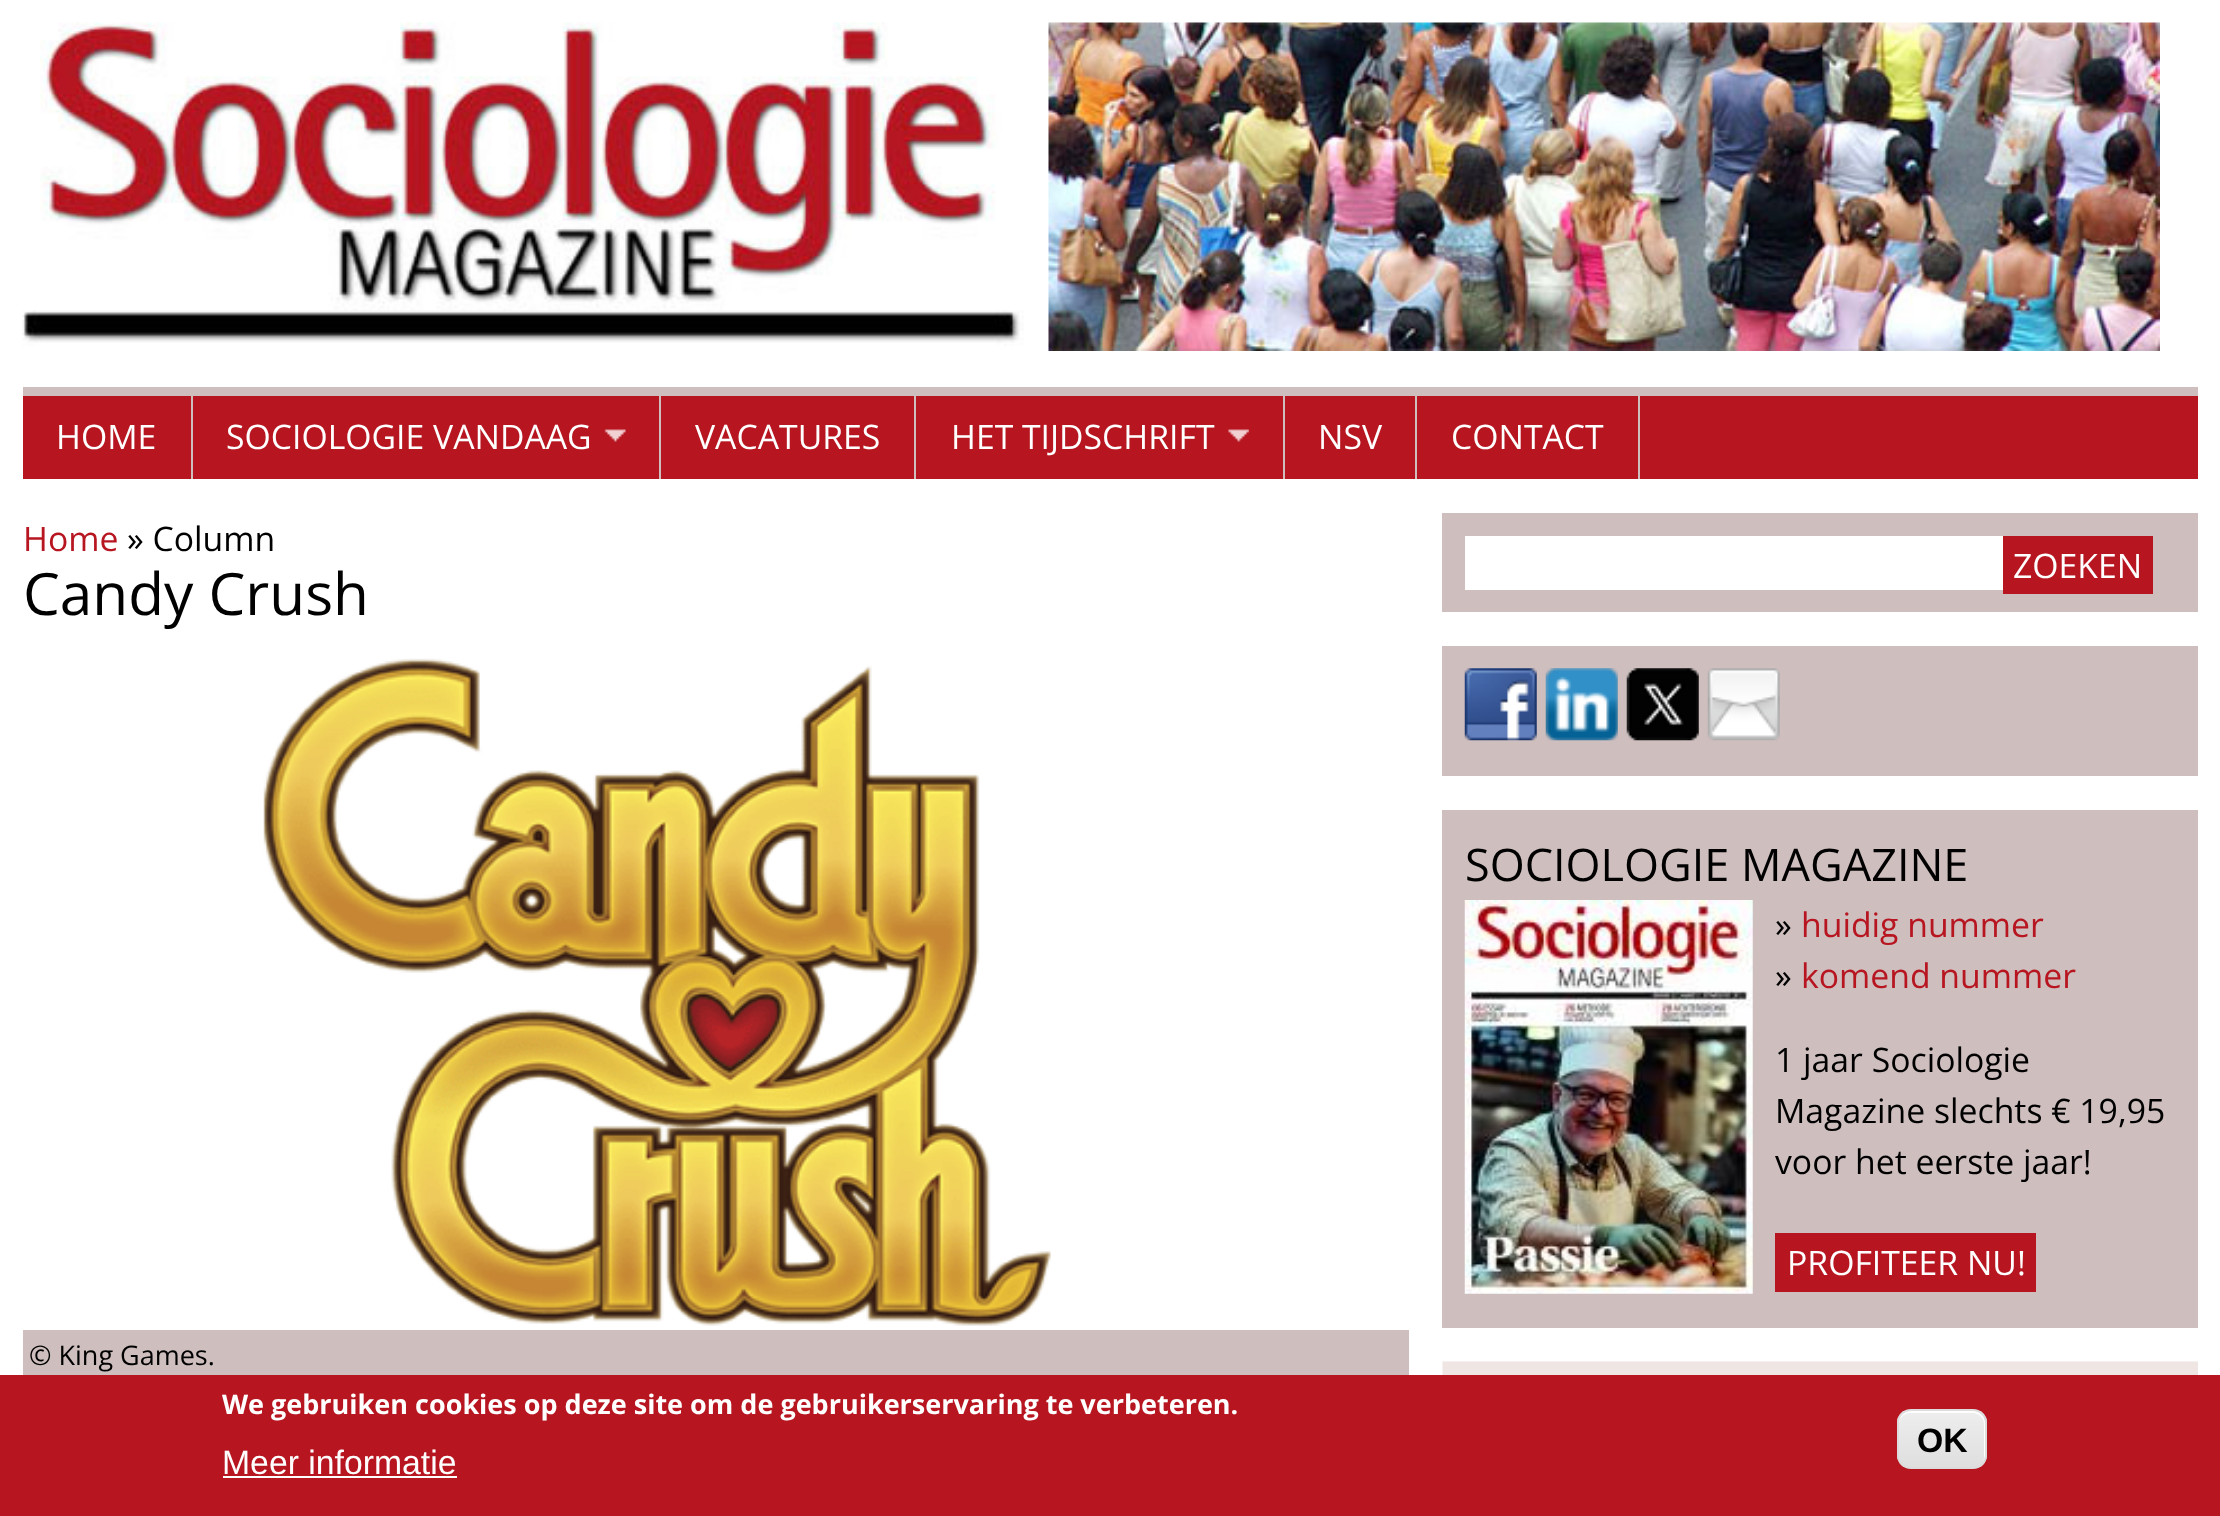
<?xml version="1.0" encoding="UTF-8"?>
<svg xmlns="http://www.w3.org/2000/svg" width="2220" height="1516">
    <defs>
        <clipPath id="clip1"><rect x="1897" y="1409" width="90" height="60" rx="14"/></clipPath>
        <linearGradient id="g1" gradientUnits="userSpaceOnUse" x1="1942" y1="1411" x2="1942" y2="1467"><stop offset="0.05" stop-color="#EDEDED"/><stop offset="1" stop-color="#DFDFDF"/></linearGradient>
    </defs>
    <rect width="100%" height="100%" fill="#FFFFFF"/>
    <image x="22" y="22" width="1002" height="324" href="img_01.png"/>
    <image x="1048" y="22" width="1112" height="329" href="img_02.png"/>
    <rect x="23" y="396" width="2175" height="83" fill="#B71520"/>
    <rect x="23" y="387" width="2175" height="9" fill="#CEBEBE"/>
    <rect x="191" y="396" width="2" height="83" fill="#CEBEBE"/>
    <text x="56" y="449" font-family="Open Sans" font-size="33.75" fill="#FFFFFF">HOME</text>
    <rect x="659" y="396" width="2" height="83" fill="#CEBEBE"/>
    <text x="226" y="449" font-family="Open Sans" font-size="33.75" fill="#FFFFFF">SOCIOLOGIE VANDAAG</text>
    <image x="604" y="429" width="22" height="13" href="img_03.png"/>
    <rect x="914" y="396" width="2" height="83" fill="#CEBEBE"/>
    <text x="695" y="449" font-family="Open Sans" font-size="33.75" fill="#FFFFFF">VACATURES</text>
    <rect x="1283" y="396" width="2" height="83" fill="#CEBEBE"/>
    <text x="951" y="449" font-family="Open Sans" font-size="33.75" fill="#FFFFFF">HET TIJDSCHRIFT</text>
    <image x="1228" y="429" width="21" height="13" href="img_04.png"/>
    <rect x="1415" y="396" width="2" height="83" fill="#CEBEBE"/>
    <text x="1318" y="449" font-family="Open Sans" font-size="33.75" fill="#FFFFFF">NSV</text>
    <rect x="1638" y="396" width="2" height="83" fill="#CEBEBE"/>
    <text x="1451" y="449" font-family="Open Sans" font-size="33.75" fill="#FFFFFF">CONTACT</text>
    <text x="23" y="551" font-family="Open Sans" font-size="33.75" fill="#B71520">Home</text>
    <text x="127" y="551" font-family="Open Sans" font-size="33.75" fill="#000000">» Column</text>
    <text x="23" y="615" font-family="Open Sans" font-size="58.5" fill="#000000">Candy Crush</text>
    <image x="263" y="658" width="788" height="668" href="img_05.png"/>
    <rect x="23" y="1330" width="1386" height="45" fill="#CEBEBE"/>
    <text x="29" y="1365" font-family="Open Sans" font-size="27" fill="#000000">© King Games.</text>
    <rect x="1442" y="513" width="756" height="99" fill="#CEBEBE"/>
    <rect x="1465" y="536" width="538" height="54" fill="#FFFFFF"/>
    <rect x="2003" y="536" width="150" height="58" fill="#B71520"/>
    <text x="2013" y="578" font-family="Open Sans" font-size="33.75" fill="#FFFFFF">ZOEKEN</text>
    <rect x="1442" y="646" width="756" height="130" fill="#CEBEBE"/>
    <image x="1464" y="668" width="73" height="73" href="img_06.png"/>
    <image x="1545" y="668" width="73" height="73" href="img_07.png"/>
    <image x="1626" y="668" width="73" height="73" href="img_08.png"/>
    <image x="1707" y="668" width="73" height="73" href="img_09.png"/>
    <rect x="1442" y="810" width="756" height="518" fill="#CEBEBE"/>
    <text x="1465" y="881" font-family="Open Sans" font-size="45" fill="#000000">SOCIOLOGIE MAGAZINE</text>
    <image x="1464" y="900" width="289" height="394" href="img_10.png"/>
    <text x="1775" y="937" font-family="Open Sans" font-size="33.75" fill="#000000">»</text>
    <text x="1801" y="937" font-family="Open Sans" font-size="33.75" fill="#B71520">huidig nummer</text>
    <text x="1775" y="988" font-family="Open Sans" font-size="33.75" fill="#000000">»</text>
    <text x="1801" y="988" font-family="Open Sans" font-size="33.75" fill="#B71520">komend nummer</text>
    <text font-family="Open Sans" font-size="33.75" fill="#000000">
        <tspan x="1775" y="1072">1 jaar Sociologie</tspan>
        <tspan x="1775" y="1123">Magazine slechts € 19,95</tspan>
        <tspan x="1775" y="1174">voor het eerste jaar!</tspan>
    </text>
    <rect x="1775" y="1233" width="261" height="59" fill="#B71520"/>
    <text x="1787" y="1275" font-family="Open Sans" font-size="33.75" fill="#FFFFFF">PROFITEER NU!</text>
    <image x="1442" y="1361" width="756" height="14" href="img_11.png"/>
    <rect x="0" y="1375" width="2220" height="141" fill="#B71520"/>
    <text x="222" y="1414" font-family="Open Sans" font-size="27" font-weight="700" fill="#FFFFFF">We gebruiken cookies op deze site om de gebruikerservaring te verbeteren.</text>
    <text x="222" y="1474" font-family="Liberation Sans" font-size="33.75" fill="#FFFFFF">Meer informatie</text>
    <rect x="223" y="1476" width="234" height="2" fill="#FFFFFF"/>
    <g clip-path="url(#clip1)">
        <rect x="1897" y="1411" width="90" height="56" fill="url(#g1)"/>
    </g>
    <path d="M 1910 1413 H 1973 C 1979 1413 1984 1418 1984 1424 V 1458 L 1983 1462 C 1984 1460 1985 1458 1985 1456 V 1422 C 1985 1416 1980 1411 1974 1411 H 1910 C 1904 1411 1899 1416 1899 1422 V 1424 C 1899 1418 1904 1413 1910 1413 Z" fill="#FFFFFF"/>
    <rect x="1898" y="1410" width="88" height="58" rx="13" fill="none" stroke="#DCDCDC" stroke-width="2"/>
    <text x="1917" y="1452" font-family="Liberation Sans" font-size="33.75" font-weight="700" fill="#000000">OK</text>
</svg>
